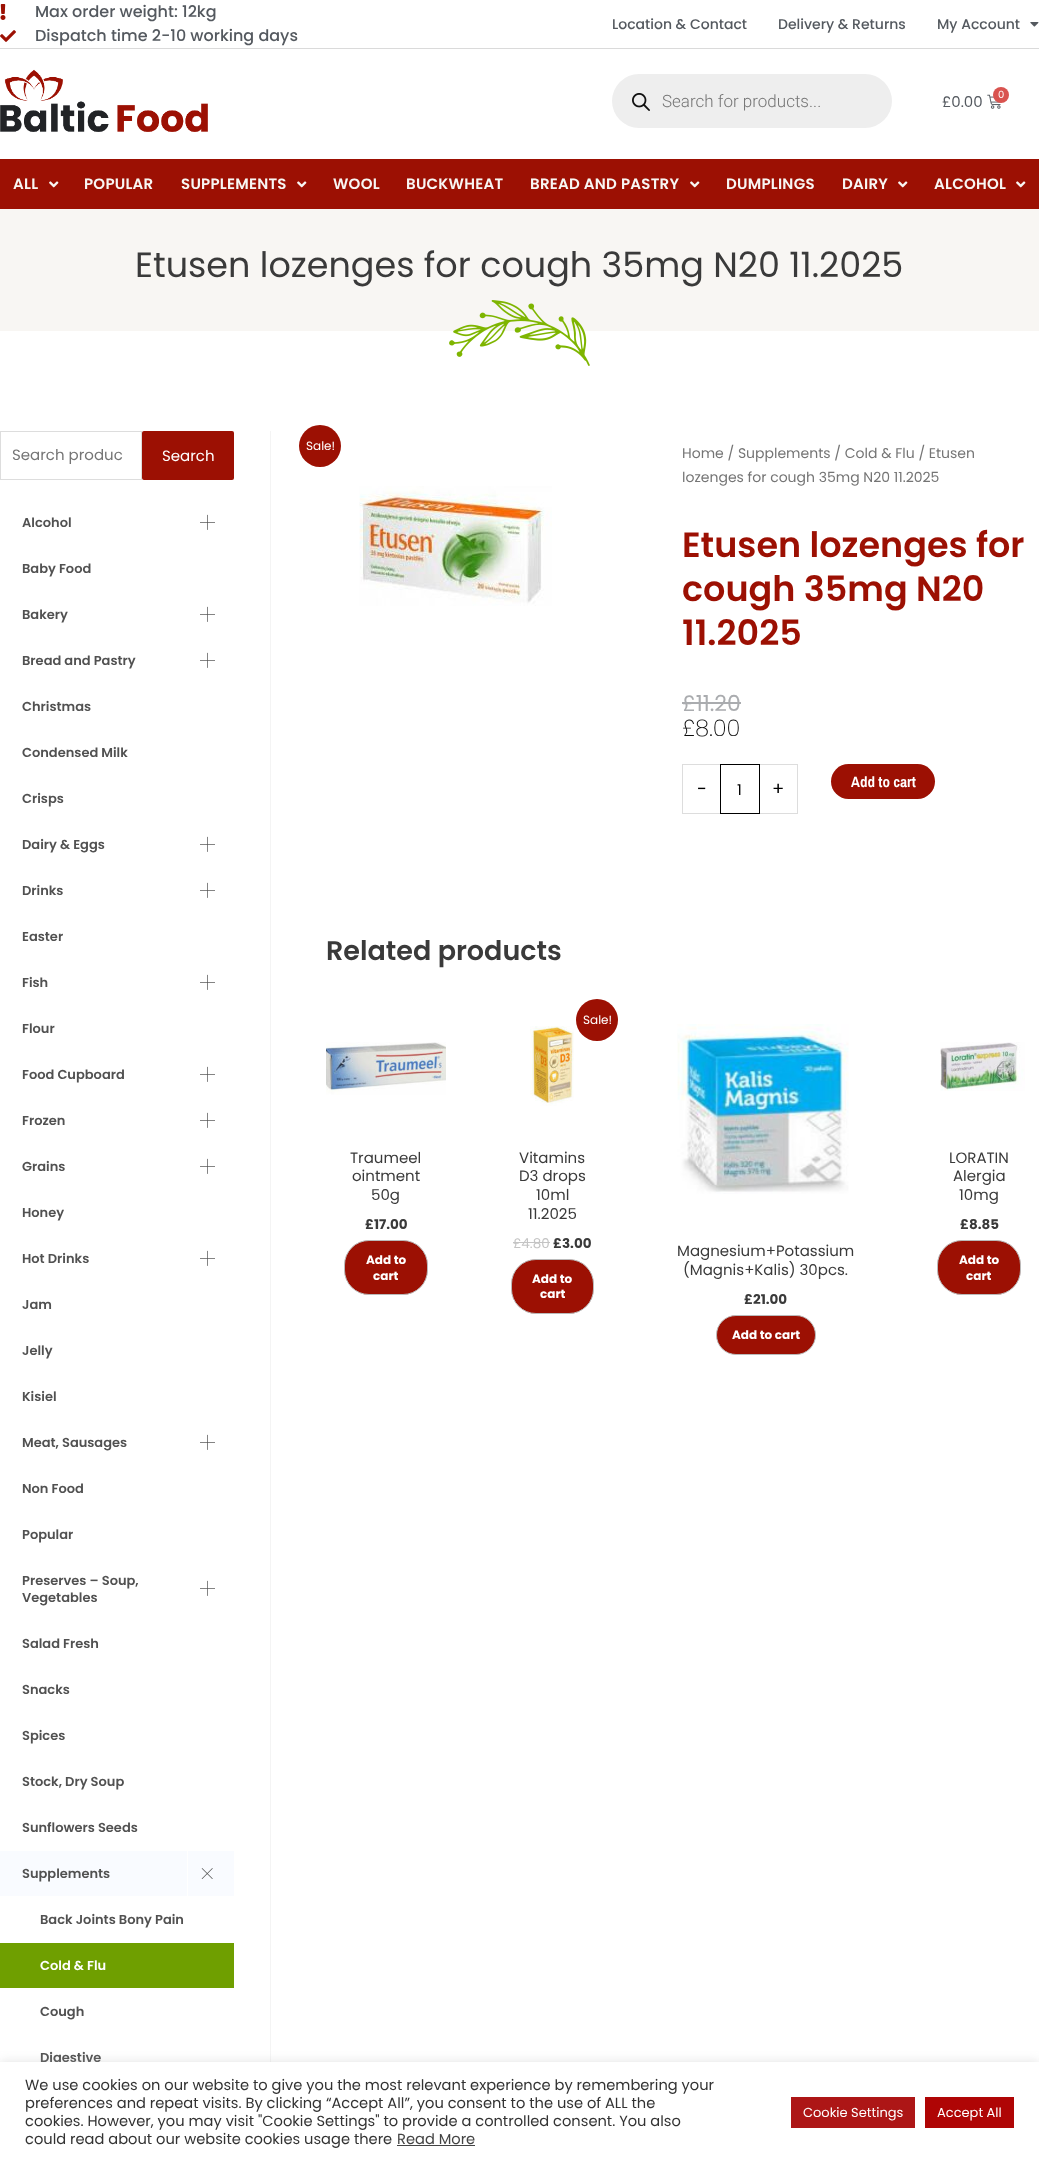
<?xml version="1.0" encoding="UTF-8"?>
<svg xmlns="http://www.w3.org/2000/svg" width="1039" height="2162">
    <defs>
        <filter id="blur1" x="-50%" y="-200%" width="200%" height="500%"><feGaussianBlur stdDeviation="5"/></filter>
    </defs>
    <rect width="100%" height="100%" fill="#FFFFFF"/>
    <rect x="0" y="48" width="1039" height="1" fill="#DADADA"/>
    <image x="0" y="4" width="6" height="16" href="img_01.png"/>
    <text x="35" y="17" font-family="Poppins" font-size="16" font-weight="500" fill="#54595F">Max order weight: 12kg</text>
    <image x="0" y="30" width="16" height="12" href="img_02.png"/>
    <text x="35" y="41" font-family="Poppins" font-size="16" font-weight="500" fill="#54595F">Dispatch time 2-10 working days</text>
    <text x="612" y="29" font-family="Poppins" font-size="14" font-weight="500" fill="#54595F">Location &amp; Contact</text>
    <text x="778" y="29" font-family="Poppins" font-size="14" font-weight="500" fill="#54595F">Delivery &amp; Returns</text>
    <text x="937" y="29" font-family="Poppins" font-size="14" font-weight="500" fill="#54595F">My Account</text>
    <image x="1030" y="22" width="9" height="5" href="img_03.png"/>
    <image x="0" y="69" width="208" height="63" href="img_04.png"/>
    <rect x="612" y="74" width="280" height="54" rx="27" fill="#EEEEEE"/>
    <image x="632" y="93" width="18" height="18" href="img_05.png"/>
    <text x="662" y="107" font-family="Roboto" font-size="17" font-weight="300" fill="#757575">Search for products...</text>
    <image x="987" y="94" width="14" height="15" href="img_06.png"/>
    <circle cx="1001" cy="95" r="8" fill="#D9534F"/>
    <text x="998" y="98" font-family="Poppins" font-size="10" fill="#FFFFFF">0</text>
    <text x="942" y="107" font-family="Poppins" font-size="15" fill="#54595F">£0.00</text>
    <rect x="0" y="159" width="1039" height="50" fill="#9C1003"/>
    <text x="13" y="189" font-family="Poppins" font-size="15" font-weight="600" letter-spacing="0.25" fill="#F8F6F3">ALL</text>
    <image x="49" y="181" width="10" height="7" href="img_07.png"/>
    <text x="84" y="189" font-family="Poppins" font-size="15" font-weight="600" letter-spacing="0.25" fill="#F8F6F3">POPULAR</text>
    <text x="181" y="189" font-family="Poppins" font-size="15" font-weight="600" letter-spacing="0.25" fill="#F8F6F3">SUPPLEMENTS</text>
    <image x="297" y="181" width="10" height="7" href="img_07.png"/>
    <text x="333" y="189" font-family="Poppins" font-size="15" font-weight="600" letter-spacing="0.25" fill="#F8F6F3">WOOL</text>
    <text x="406" y="189" font-family="Poppins" font-size="15" font-weight="600" letter-spacing="0.25" fill="#F8F6F3">BUCKWHEAT</text>
    <text x="530" y="189" font-family="Poppins" font-size="15" font-weight="600" letter-spacing="0.25" fill="#F8F6F3">BREAD AND PASTRY</text>
    <image x="690" y="181" width="10" height="7" href="img_07.png"/>
    <text x="726" y="189" font-family="Poppins" font-size="15" font-weight="600" letter-spacing="0.25" fill="#F8F6F3">DUMPLINGS</text>
    <text x="842" y="189" font-family="Poppins" font-size="15" font-weight="600" letter-spacing="0.25" fill="#F8F6F3">DAIRY</text>
    <image x="898" y="181" width="10" height="7" href="img_07.png"/>
    <text x="934" y="189" font-family="Poppins" font-size="15" font-weight="600" letter-spacing="0.25" fill="#F8F6F3">ALCOHOL</text>
    <image x="1016" y="181" width="10" height="7" href="img_07.png"/>
    <rect x="0" y="209" width="1039" height="122" fill="#F8F6F3"/>
    <text x="135" y="277" font-family="Poppins" font-size="35" fill="#3A3A3A">Etusen lozenges for cough 35mg N20 11.2025</text>
    <image x="449" y="300" width="141" height="66" href="img_08.png"/>
    <rect x="0.5" y="431.5" width="141" height="48" fill="none" stroke="#DDDDDD"/>
    <text x="12" y="460" font-family="Poppins" font-size="15" fill="#757575">Search produc</text>
    <rect x="142" y="431" width="92" height="49" rx="2" fill="#9C1003"/>
    <text x="162" y="461" font-family="Poppins" font-size="15" fill="#FFFFFF">Search</text>
    <text x="22" y="527" font-family="Poppins" font-size="13" font-weight="600" fill="#515151">Alcohol</text>
    <image x="200" y="514" width="15" height="16" href="img_09.png"/>
    <text x="22" y="573" font-family="Poppins" font-size="13" font-weight="600" fill="#515151">Baby Food</text>
    <text x="22" y="619" font-family="Poppins" font-size="13" font-weight="600" fill="#515151">Bakery</text>
    <image x="200" y="606" width="15" height="16" href="img_09.png"/>
    <text x="22" y="665" font-family="Poppins" font-size="13" font-weight="600" fill="#515151">Bread and Pastry</text>
    <image x="200" y="652" width="15" height="16" href="img_09.png"/>
    <text x="22" y="711" font-family="Poppins" font-size="13" font-weight="600" fill="#515151">Christmas</text>
    <text x="22" y="757" font-family="Poppins" font-size="13" font-weight="600" fill="#515151">Condensed Milk</text>
    <text x="22" y="803" font-family="Poppins" font-size="13" font-weight="600" fill="#515151">Crisps</text>
    <text x="22" y="849" font-family="Poppins" font-size="13" font-weight="600" fill="#515151">Dairy &amp; Eggs</text>
    <image x="200" y="836" width="15" height="16" href="img_09.png"/>
    <text x="22" y="895" font-family="Poppins" font-size="13" font-weight="600" fill="#515151">Drinks</text>
    <image x="200" y="882" width="15" height="16" href="img_09.png"/>
    <text x="22" y="941" font-family="Poppins" font-size="13" font-weight="600" fill="#515151">Easter</text>
    <text x="22" y="987" font-family="Poppins" font-size="13" font-weight="600" fill="#515151">Fish</text>
    <image x="200" y="974" width="15" height="16" href="img_09.png"/>
    <text x="22" y="1033" font-family="Poppins" font-size="13" font-weight="600" fill="#515151">Flour</text>
    <text x="22" y="1079" font-family="Poppins" font-size="13" font-weight="600" fill="#515151">Food Cupboard</text>
    <image x="200" y="1066" width="15" height="16" href="img_09.png"/>
    <text x="22" y="1125" font-family="Poppins" font-size="13" font-weight="600" fill="#515151">Frozen</text>
    <image x="200" y="1112" width="15" height="16" href="img_09.png"/>
    <text x="22" y="1171" font-family="Poppins" font-size="13" font-weight="600" fill="#515151">Grains</text>
    <image x="200" y="1158" width="15" height="16" href="img_09.png"/>
    <text x="22" y="1217" font-family="Poppins" font-size="13" font-weight="600" fill="#515151">Honey</text>
    <text x="22" y="1263" font-family="Poppins" font-size="13" font-weight="600" fill="#515151">Hot Drinks</text>
    <image x="200" y="1250" width="15" height="16" href="img_09.png"/>
    <text x="22" y="1309" font-family="Poppins" font-size="13" font-weight="600" fill="#515151">Jam</text>
    <text x="22" y="1355" font-family="Poppins" font-size="13" font-weight="600" fill="#515151">Jelly</text>
    <text x="22" y="1401" font-family="Poppins" font-size="13" font-weight="600" fill="#515151">Kisiel</text>
    <text x="22" y="1447" font-family="Poppins" font-size="13" font-weight="600" fill="#515151">Meat, Sausages</text>
    <image x="200" y="1434" width="15" height="16" href="img_09.png"/>
    <text x="22" y="1493" font-family="Poppins" font-size="13" font-weight="600" fill="#515151">Non Food</text>
    <text x="22" y="1539" font-family="Poppins" font-size="13" font-weight="600" fill="#515151">Popular</text>
    <text x="22" y="1585" font-family="Poppins" font-size="13" font-weight="600" fill="#515151">Preserves – Soup,</text>
    <image x="200" y="1580" width="15" height="16" href="img_09.png"/>
    <text x="22" y="1602" font-family="Poppins" font-size="13" font-weight="600" fill="#515151">Vegetables</text>
    <text x="22" y="1648" font-family="Poppins" font-size="13" font-weight="600" fill="#515151">Salad Fresh</text>
    <text x="22" y="1694" font-family="Poppins" font-size="13" font-weight="600" fill="#515151">Snacks</text>
    <text x="22" y="1740" font-family="Poppins" font-size="13" font-weight="600" fill="#515151">Spices</text>
    <text x="22" y="1786" font-family="Poppins" font-size="13" font-weight="600" fill="#515151">Stock, Dry Soup</text>
    <text x="22" y="1832" font-family="Poppins" font-size="13" font-weight="600" fill="#515151">Sunflowers Seeds</text>
    <rect x="0" y="1851" width="234" height="45" fill="#F9FBFF"/>
    <text x="22" y="1878" font-family="Poppins" font-size="13" font-weight="600" fill="#515151">Supplements</text>
    <rect x="187" y="1851" width="1" height="45" fill="#FFFFFF"/>
    <image x="201" y="1868" width="12" height="11" href="img_10.png"/>
    <text x="40" y="1924" font-family="Poppins" font-size="13" font-weight="600" fill="#515151">Back Joints Bony Pain</text>
    <rect x="0" y="1943" width="234" height="45" fill="#6F9F00"/>
    <text x="40" y="1970" font-family="Poppins" font-size="13" font-weight="600" fill="#FFFFFF">Cold &amp; Flu</text>
    <text x="40" y="2016" font-family="Poppins" font-size="13" font-weight="600" fill="#515151">Cough</text>
    <text x="40" y="2062" font-family="Poppins" font-size="13" font-weight="600" fill="#515151">Digestive</text>
    <rect x="270" y="431" width="1" height="1631" fill="#F4F4F4"/>
    <circle cx="320" cy="446" r="21" fill="#9C1003"/>
    <text x="306" y="450" font-family="Poppins" font-size="12" fill="#FFFFFF">Sale!</text>
    <image x="359" y="486" width="193" height="120" href="img_11.png"/>
    <text font-family="Poppins" font-size="14" fill="#757575">
        <tspan x="682" y="458">Home / Supplements / Cold &amp; Flu / Etusen</tspan>
        <tspan x="682" y="482">lozenges for cough 35mg N20 11.2025</tspan>
    </text>
    <text font-family="Poppins" font-size="35" font-weight="600" fill="#9C1003">
        <tspan x="682" y="557">Etusen lozenges for</tspan>
        <tspan x="682" y="601">cough 35mg N20</tspan>
        <tspan x="682" y="645">11.2025</tspan>
    </text>
    <text x="682" y="711" font-family="Poppins" font-size="22" fill="#AAACAF">£11.20</text>
    <rect x="682" y="702" width="59" height="2" fill="#AAACAF"/>
    <text x="682" y="736" font-family="Poppins" font-size="23" font-weight="200" fill="#0C0C0C">£8.00</text>
    <rect x="682" y="764" width="38" height="1" fill="#DDDDDD"/>
    <rect x="682" y="813" width="38" height="1" fill="#DDDDDD"/>
    <rect x="682" y="764" width="1" height="50" fill="#DDDDDD"/>
    <text x="697" y="795" font-family="Poppins" font-size="18" fill="#000000">-</text>
    <rect x="720.5" y="764.5" width="39" height="49" fill="none" stroke="#000000"/>
    <text x="737" y="795" font-family="Poppins" font-size="15" fill="#000000">1</text>
    <rect x="760" y="764" width="38" height="1" fill="#DDDDDD"/>
    <rect x="797" y="764" width="1" height="50" fill="#DDDDDD"/>
    <rect x="760" y="813" width="38" height="1" fill="#DDDDDD"/>
    <text x="772" y="795" font-family="Poppins" font-size="18" fill="#000000">+</text>
    <rect x="831" y="764" width="104" height="35" rx="17.5" fill="#9C1003"/>
    <text x="851" y="787" font-family="Archivo Narrow" font-size="15" font-weight="700" fill="#FFFFFF">Add to cart</text>
    <text x="326" y="960" font-family="Poppins" font-size="27" font-weight="600" fill="#3A3A3A">Related products</text>
    <image x="326" y="1042" width="120" height="53" href="img_12.png"/>
    <text x="350" y="1163" font-family="Poppins" font-size="15" fill="#3A3A3A">Traumeel</text>
    <text x="352" y="1181" font-family="Poppins" font-size="15" fill="#3A3A3A">ointment</text>
    <text x="371" y="1200" font-family="Poppins" font-size="15" fill="#3A3A3A">50g</text>
    <text x="365" y="1229" font-family="Poppins" font-size="13.5" font-weight="700" fill="#3A3A3A">£17.00</text>
    <rect x="344.5" y="1240.5" width="83" height="54" rx="24.5" fill="#9C1003" stroke="#BABABA"/>
    <text x="366" y="1264" font-family="Poppins" font-size="12" font-weight="700" fill="#FFFFFF">Add to</text>
    <text x="373" y="1280" font-family="Poppins" font-size="12" font-weight="700" fill="#FFFFFF">cart</text>
    <circle cx="597" cy="1020" r="21" fill="#9C1003"/>
    <text x="583" y="1024" font-family="Poppins" font-size="12" fill="#FFFFFF">Sale!</text>
    <image x="530" y="1026" width="44" height="80" href="img_13.png"/>
    <text font-family="Poppins" font-size="15" fill="#3A3A3A">
        <tspan x="519" y="1163">Vitamins</tspan>
        <tspan x="519" y="1181">D3 drops</tspan>
    </text>
    <text x="536" y="1200" font-family="Poppins" font-size="15" fill="#3A3A3A">10ml</text>
    <text x="528" y="1219" font-family="Poppins" font-size="15" fill="#3A3A3A">11.2025</text>
    <text x="513" y="1248" font-family="Poppins" font-size="13.5" fill="#C4C4C4">£4.80</text>
    <rect x="513" y="1242" width="37" height="1" fill="#C4C4C4"/>
    <text x="553" y="1248" font-family="Poppins" font-size="13.5" font-weight="700" fill="#3A3A3A">£3.00</text>
    <rect x="511.5" y="1259.5" width="82" height="54" rx="24.5" fill="#9C1003" stroke="#BABABA"/>
    <text x="532" y="1283" font-family="Poppins" font-size="12" font-weight="700" fill="#FFFFFF">Add to</text>
    <text x="540" y="1298" font-family="Poppins" font-size="12" font-weight="700" fill="#FFFFFF">cart</text>
    <image x="940" y="1042" width="85" height="49" href="img_14.png"/>
    <text x="949" y="1163" font-family="Poppins" font-size="15" fill="#3A3A3A">LORATIN</text>
    <text x="953" y="1181" font-family="Poppins" font-size="15" fill="#3A3A3A">Alergia</text>
    <text x="959" y="1200" font-family="Poppins" font-size="15" fill="#3A3A3A">10mg</text>
    <text x="960" y="1229" font-family="Poppins" font-size="13.5" font-weight="700" fill="#3A3A3A">£8.85</text>
    <rect x="937.5" y="1240.5" width="83" height="54" rx="24.5" fill="#9C1003" stroke="#BABABA"/>
    <text x="959" y="1264" font-family="Poppins" font-size="12" font-weight="700" fill="#FFFFFF">Add to</text>
    <text x="966" y="1280" font-family="Poppins" font-size="12" font-weight="700" fill="#FFFFFF">cart</text>
    <image x="677" y="1024" width="172" height="170" href="img_15.png"/>
    <text x="677" y="1256" font-family="Poppins" font-size="15" fill="#3A3A3A">Magnesium+Potassium</text>
    <text x="683" y="1275" font-family="Poppins" font-size="15" fill="#3A3A3A">(Magnis+Kalis) 30pcs.</text>
    <text x="744" y="1304" font-family="Poppins" font-size="13.5" font-weight="700" fill="#3A3A3A">£21.00</text>
    <rect x="716.5" y="1315.5" width="99" height="39" rx="19.5" fill="#9C1003" stroke="#BABABA"/>
    <text x="732" y="1339" font-family="Poppins" font-size="12" font-weight="700" fill="#FFFFFF">Add to cart</text>
    <rect x="0" y="2061" width="1039" height="100" fill="#ACABAB" fill-opacity="0.3" filter="url(#blur1)"/>
    <rect x="0" y="2062" width="1039" height="100" fill="#FFFFFF"/>
    <text font-family="Poppins" font-size="14.65" fill="#333333">
        <tspan x="25" y="2090">We use cookies on our website to give you the most relevant experience by remembering your</tspan>
        <tspan x="25" y="2108">preferences and repeat visits. By clicking “Accept All”, you consent to the use of ALL the</tspan>
        <tspan x="25" y="2126">cookies. However, you may visit "Cookie Settings" to provide a controlled consent. You also</tspan>
        <tspan x="25" y="2144">could read about our website cookies usage there</tspan>
    </text>
    <text x="397" y="2144" font-family="Poppins" font-size="14.65" fill="#444444">Read More</text>
    <rect x="397" y="2145" width="78" height="1" fill="#444444"/>
    <rect x="791" y="2097" width="124" height="31" fill="#AD1616"/>
    <text x="803" y="2117" font-family="Poppins" font-size="13" fill="#FFFFFF">Cookie Settings</text>
    <rect x="925" y="2097" width="89" height="31" fill="#AF0505"/>
    <text x="937" y="2117" font-family="Poppins" font-size="13" fill="#FFFFFF">Accept All</text>
</svg>
